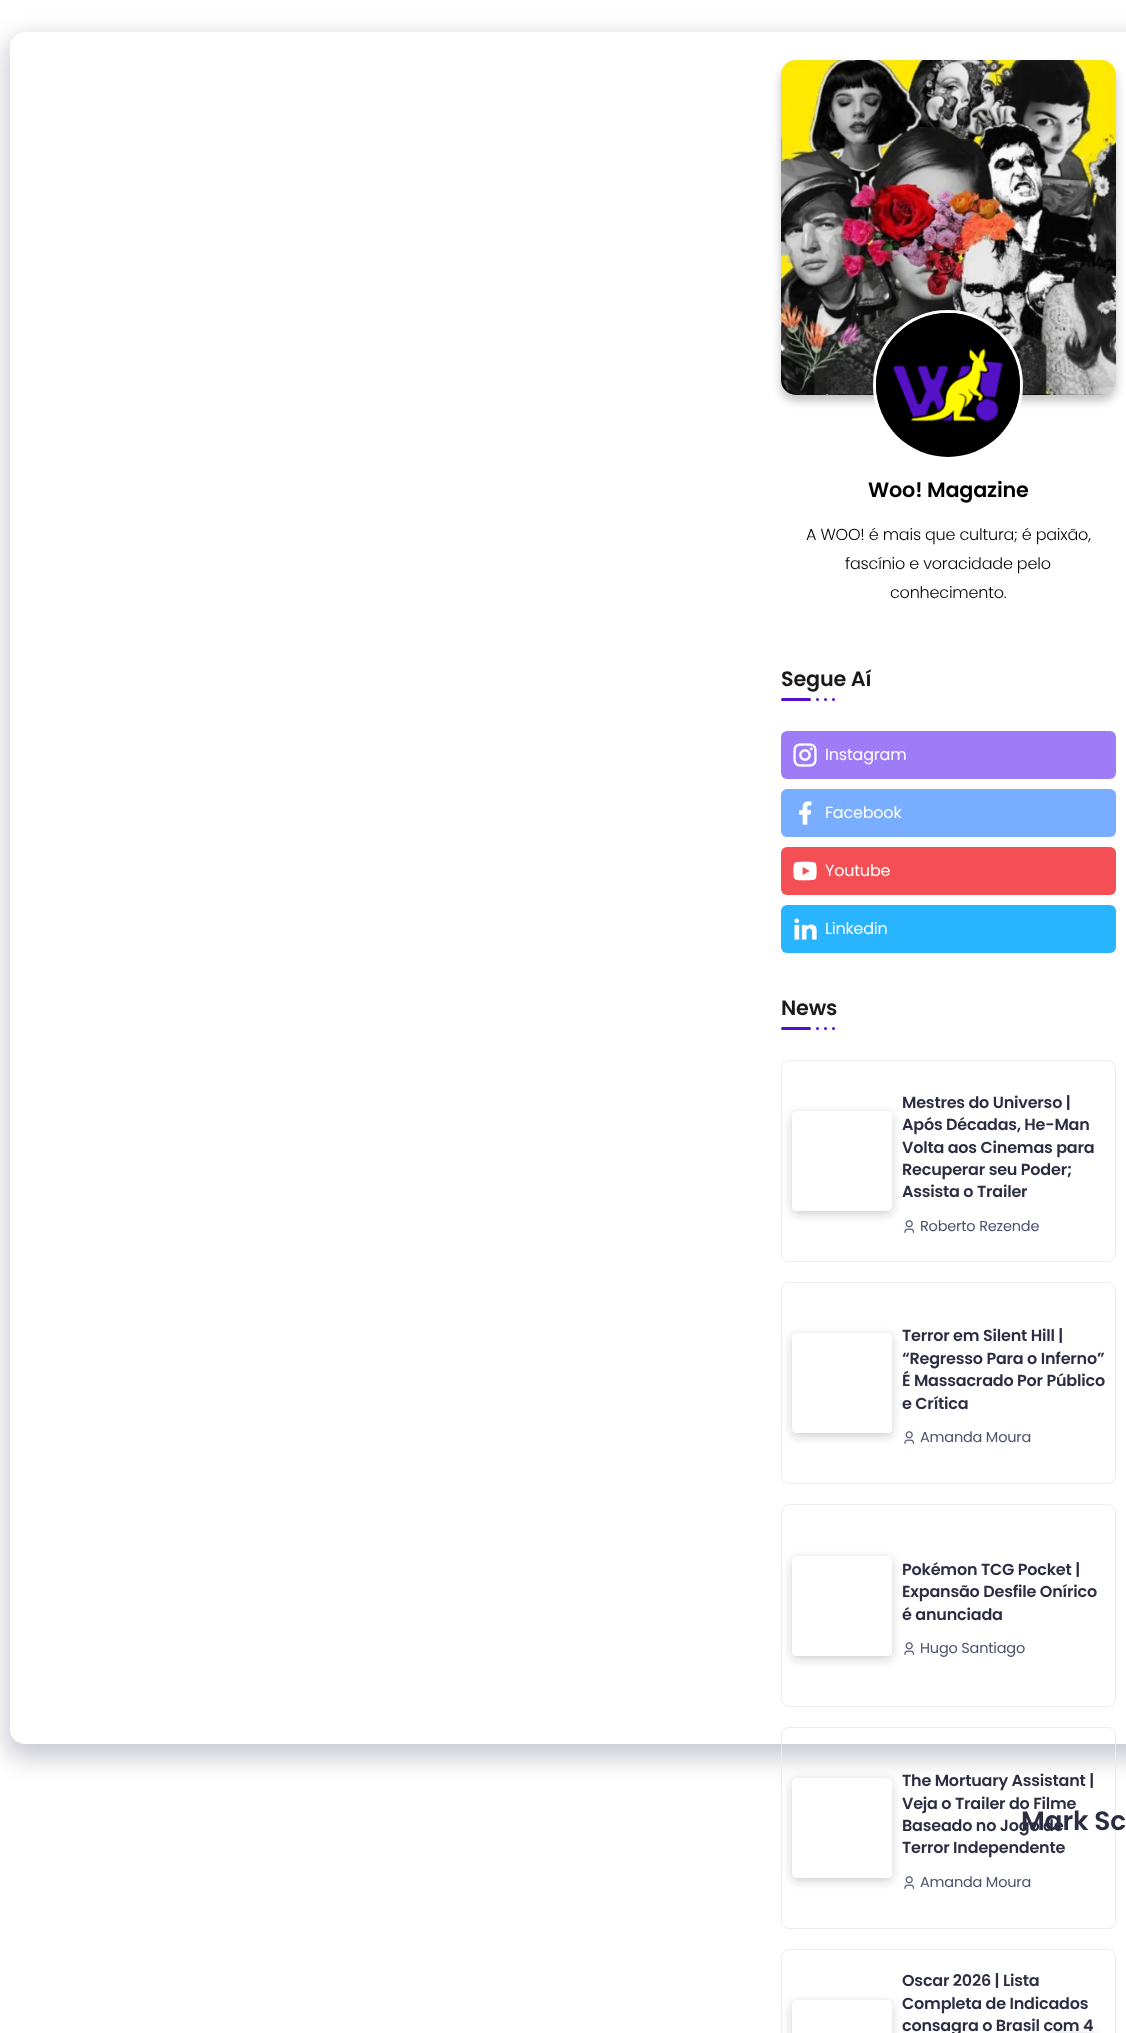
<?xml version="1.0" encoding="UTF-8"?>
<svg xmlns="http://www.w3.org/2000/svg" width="1126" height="2033">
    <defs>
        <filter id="blur1" x="-50%" y="-200%" width="200%" height="500%"><feGaussianBlur stdDeviation="5"/></filter>
        <clipPath id="clip1"><path d="M 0 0 H 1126 V 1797 H 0 Z M 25 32 H 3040 C 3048.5 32 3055 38.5 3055 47 V 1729 C 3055 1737.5 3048.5 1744 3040 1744 H 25 C 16.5 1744 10 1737.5 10 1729 V 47 C 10 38.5 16.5 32 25 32 Z" clip-rule="evenodd"/></clipPath>
        <filter id="blur2" x="-50%" y="-200%" width="200%" height="500%"><feGaussianBlur stdDeviation="12.5"/></filter>
        <clipPath id="clip2"><path d="M 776 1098 H 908 V 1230 H 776 Z M 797 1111 H 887 C 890 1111 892 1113 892 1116 V 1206 C 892 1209 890 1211 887 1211 H 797 C 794 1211 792 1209 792 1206 V 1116 C 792 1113 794 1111 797 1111 Z" clip-rule="evenodd"/></clipPath>
        <clipPath id="clip3"><path d="M 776 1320 H 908 V 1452 H 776 Z M 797 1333 H 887 C 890 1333 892 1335 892 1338 V 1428 C 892 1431 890 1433 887 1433 H 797 C 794 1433 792 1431 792 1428 V 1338 C 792 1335 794 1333 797 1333 Z" clip-rule="evenodd"/></clipPath>
        <clipPath id="clip4"><path d="M 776 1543 H 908 V 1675 H 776 Z M 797 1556 H 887 C 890 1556 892 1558 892 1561 V 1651 C 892 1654 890 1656 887 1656 H 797 C 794 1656 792 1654 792 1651 V 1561 C 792 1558 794 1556 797 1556 Z" clip-rule="evenodd"/></clipPath>
        <clipPath id="clip5"><path d="M 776 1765 H 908 V 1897 H 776 Z M 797 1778 H 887 C 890 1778 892 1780 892 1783 V 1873 C 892 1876 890 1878 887 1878 H 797 C 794 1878 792 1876 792 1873 V 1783 C 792 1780 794 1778 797 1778 Z" clip-rule="evenodd"/></clipPath>
        <clipPath id="clip6"><path d="M 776 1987 H 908 V 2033 H 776 Z M 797 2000 H 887 C 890 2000 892 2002 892 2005 V 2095 C 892 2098 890 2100 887 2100 H 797 C 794 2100 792 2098 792 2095 V 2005 C 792 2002 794 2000 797 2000 Z" clip-rule="evenodd"/></clipPath>
        <filter id="blur3" x="-50%" y="-200%" width="200%" height="500%"><feGaussianBlur stdDeviation="6"/></filter>
    </defs>
    <rect width="100%" height="100%" fill="#FFFFFF"/>
    <rect x="781" y="66" width="335" height="335" rx="15" fill="#000000" fill-opacity="0.24" filter="url(#blur1)"/>
    <g clip-path="url(#clip1)">
        <rect x="6" y="38" width="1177" height="1720" rx="19" fill="#171920" fill-opacity="0.21" filter="url(#blur2)"/>
    </g>
    <image x="781" y="60" width="335" height="335" href="img_01.png"/>
    <circle cx="948" cy="385" r="73.5" fill="none" stroke="#FFFFFF" stroke-width="3"/>
    <image x="876" y="313" width="144" height="144" href="img_02.png"/>
    <text x="868" y="497" font-family="Poppins" font-size="20.75" font-weight="600" letter-spacing="-0.2" fill="#000000">Woo! Magazine</text>
    <text x="806" y="540" font-family="Poppins" font-size="16" font-weight="300" letter-spacing="-0.2" fill="#000000">A WOO! é mais que cultura; é paixão,</text>
    <text x="845" y="569" font-family="Poppins" font-size="16" font-weight="300" letter-spacing="-0.2" fill="#000000">fascínio e voracidade pelo</text>
    <text x="890" y="598" font-family="Poppins" font-size="16" font-weight="300" letter-spacing="-0.2" fill="#000000">conhecimento.</text>
    <text x="781" y="686" font-family="Poppins" font-size="20.75" font-weight="600" letter-spacing="-0.2" fill="#191A1B">Segue Aí</text>
    <rect x="781" y="698" width="30" height="3" rx="1.5" fill="#5411C6"/>
    <circle cx="817.5" cy="699.5" r="1.5" fill="#5411C6"/>
    <circle cx="825.5" cy="699.5" r="1.5" fill="#5411C6"/>
    <circle cx="833.5" cy="699.5" r="1.5" fill="#5411C6"/>
    <rect x="781" y="731" width="335" height="48" rx="6" fill="#9E7CF7"/>
    <image x="793" y="743" width="24" height="24" href="img_03.png"/>
    <text x="825" y="760" font-family="Poppins" font-size="16" letter-spacing="-0.2" fill="#FFFFFF">Instagram</text>
    <rect x="781" y="789" width="335" height="48" rx="6" fill="#79ADFF"/>
    <image x="799" y="801" width="13" height="24" href="img_04.png"/>
    <text x="825" y="818" font-family="Poppins" font-size="16" letter-spacing="-0.2" fill="#FFFFFF">Facebook</text>
    <rect x="781" y="847" width="335" height="48" rx="6" fill="#F44F54"/>
    <image x="793" y="861" width="24" height="20" href="img_05.png"/>
    <text x="825" y="876" font-family="Poppins" font-size="16" letter-spacing="-0.2" fill="#FFFFFF">Youtube</text>
    <rect x="781" y="905" width="335" height="48" rx="6" fill="#29B4FF"/>
    <image x="794" y="918" width="23" height="22" href="img_06.png"/>
    <text x="825" y="934" font-family="Poppins" font-size="16" letter-spacing="-0.2" fill="#FFFFFF">Linkedin</text>
    <text x="781" y="1015" font-family="Poppins" font-size="20.75" font-weight="600" letter-spacing="-0.2" fill="#191A1B">News</text>
    <rect x="781" y="1027" width="30" height="3" rx="1.5" fill="#5411C6"/>
    <circle cx="817.5" cy="1028.5" r="1.5" fill="#5411C6"/>
    <circle cx="825.5" cy="1028.5" r="1.5" fill="#5411C6"/>
    <circle cx="833.5" cy="1028.5" r="1.5" fill="#5411C6"/>
    <rect x="781.5" y="1060.5" width="334" height="201" rx="7.5" fill="none" stroke="#E8ECF3"/>
    <g clip-path="url(#clip2)">
        <rect x="792" y="1114" width="100" height="100" rx="5" fill="#343536" fill-opacity="0.24" filter="url(#blur1)"/>
    </g>
    <text font-family="Poppins" font-size="16" font-weight="600" letter-spacing="-0.2" fill="#2B2D42">
        <tspan x="902" y="1108">Mestres do Universo |</tspan>
        <tspan x="902" y="1130">Após Décadas, He-Man</tspan>
        <tspan x="902" y="1153">Volta aos Cinemas para</tspan>
        <tspan x="902" y="1175">Recuperar seu Poder;</tspan>
        <tspan x="902" y="1197">Assista o Trailer</tspan>
    </text>
    <image x="904" y="1220" width="10" height="13" href="img_07.png"/>
    <text x="920" y="1231" font-family="Poppins" font-size="14.5" letter-spacing="-0.2" fill="#4B546E">Roberto Rezende</text>
    <rect x="781.5" y="1282.5" width="334" height="201" rx="7.5" fill="none" stroke="#E8ECF3"/>
    <g clip-path="url(#clip3)">
        <rect x="792" y="1336" width="100" height="100" rx="5" fill="#343536" fill-opacity="0.24" filter="url(#blur1)"/>
    </g>
    <text font-family="Poppins" font-size="16" font-weight="600" letter-spacing="-0.2" fill="#2B2D42">
        <tspan x="902" y="1341">Terror em Silent Hill |</tspan>
        <tspan x="902" y="1364">“Regresso Para o Inferno”</tspan>
        <tspan x="902" y="1386">É Massacrado Por Público</tspan>
        <tspan x="902" y="1409">e Crítica</tspan>
    </text>
    <image x="904" y="1431" width="10" height="13" href="img_08.png"/>
    <text x="920" y="1442" font-family="Poppins" font-size="14.5" letter-spacing="-0.2" fill="#4B546E">Amanda Moura</text>
    <rect x="781.5" y="1504.5" width="334" height="202" rx="7.5" fill="none" stroke="#E8ECF3"/>
    <g clip-path="url(#clip4)">
        <rect x="792" y="1559" width="100" height="100" rx="5" fill="#343536" fill-opacity="0.24" filter="url(#blur1)"/>
    </g>
    <text font-family="Poppins" font-size="16" font-weight="600" letter-spacing="-0.2" fill="#2B2D42">
        <tspan x="902" y="1575">Pokémon TCG Pocket |</tspan>
        <tspan x="902" y="1597">Expansão Desfile Onírico</tspan>
        <tspan x="902" y="1620">é anunciada</tspan>
    </text>
    <image x="904" y="1642" width="10" height="13" href="img_09.png"/>
    <text x="920" y="1653" font-family="Poppins" font-size="14.5" letter-spacing="-0.2" fill="#4B546E">Hugo Santiago</text>
    <rect x="781.5" y="1727.5" width="334" height="201" rx="7.5" fill="none" stroke="#E8ECF3"/>
    <g clip-path="url(#clip5)">
        <rect x="792" y="1781" width="100" height="100" rx="5" fill="#343536" fill-opacity="0.24" filter="url(#blur1)"/>
    </g>
    <text font-family="Poppins" font-size="16" font-weight="600" letter-spacing="-0.2" fill="#2B2D42">
        <tspan x="902" y="1786">The Mortuary Assistant |</tspan>
        <tspan x="902" y="1809">Veja o Trailer do Filme</tspan>
        <tspan x="902" y="1831">Baseado no Jogo de</tspan>
        <tspan x="902" y="1853">Terror Independente</tspan>
    </text>
    <image x="904" y="1876" width="10" height="13" href="img_08.png"/>
    <text x="920" y="1887" font-family="Poppins" font-size="14.5" letter-spacing="-0.2" fill="#4B546E">Amanda Moura</text>
    <rect x="781.5" y="1949.5" width="334" height="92" rx="7.5" fill="none" stroke="#E8ECF3"/>
    <g clip-path="url(#clip6)">
        <rect x="792" y="2003" width="100" height="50" rx="5" fill="#343536" fill-opacity="0.24" filter="url(#blur1)"/>
    </g>
    <text font-family="Poppins" font-size="16" font-weight="600" letter-spacing="-0.2" fill="#2B2D42">
        <tspan x="902" y="1986">Oscar 2026 | Lista</tspan>
        <tspan x="902" y="2009">Completa de Indicados</tspan>
        <tspan x="902" y="2031">consagra o Brasil com 4</tspan>
    </text>
    <text x="1021" y="1830" font-family="Poppins" font-size="26.5" font-weight="600" letter-spacing="-0.2" fill="#2B2D42">Mark Sc</text>
    <rect x="1051" y="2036" width="45" height="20" rx="5" fill="#28292F" fill-opacity="0.24" filter="url(#blur3)"/>
</svg>
